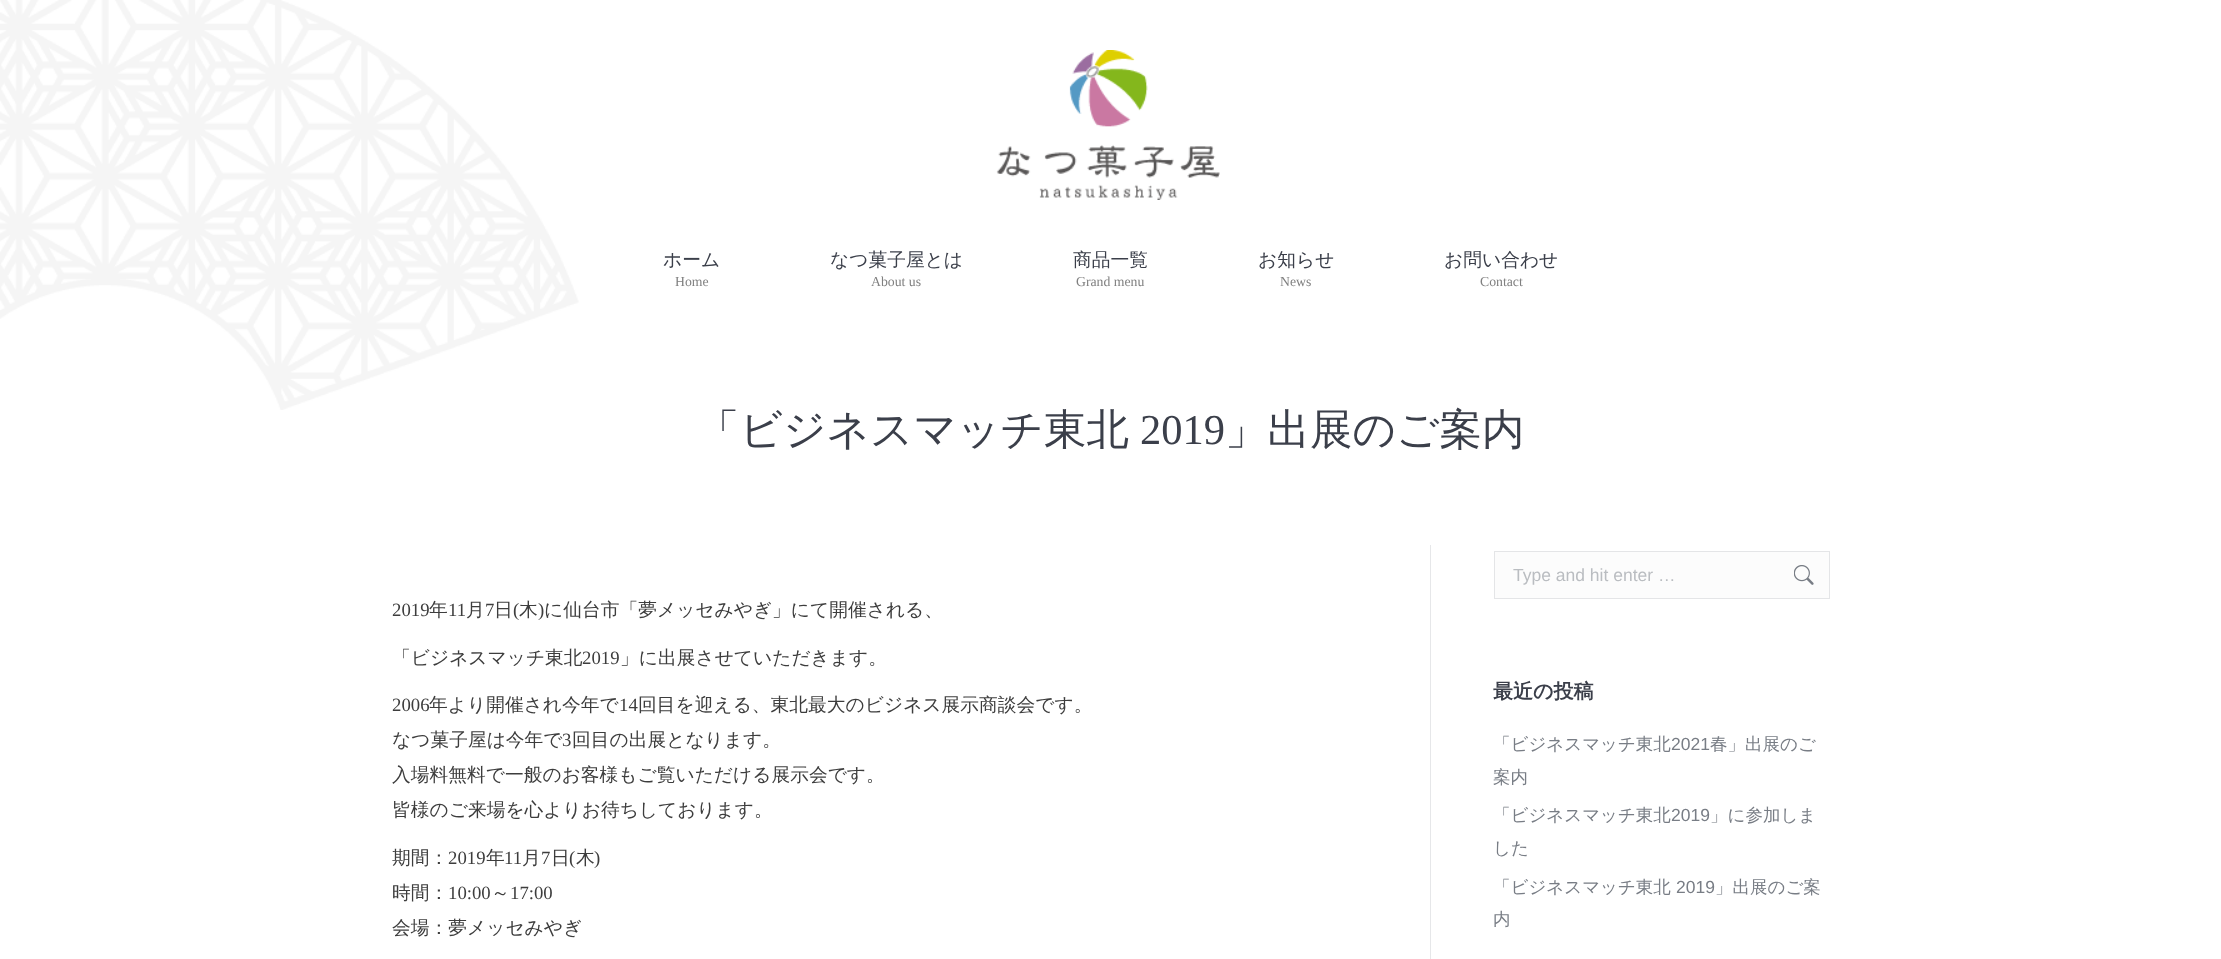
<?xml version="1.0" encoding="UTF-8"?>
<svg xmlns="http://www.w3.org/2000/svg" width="2221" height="959">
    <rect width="100%" height="100%" fill="#FFFFFF"/>
    <image x="0" y="0" width="579" height="410" href="img_01.png"/>
    <image x="996" y="50" width="224" height="150" href="img_02.png"/>
    <text x="663" y="266" font-family="WenQuanYi Zen Hei" font-size="18.75" font-weight="500" fill="#3B3F4A">ホーム</text>
    <text x="675" y="286" font-family="Liberation Serif" font-size="13.75" fill="#808080">Home</text>
    <text x="830" y="266" font-family="WenQuanYi Zen Hei" font-size="18.75" font-weight="500" fill="#3B3F4A">なつ菓子屋とは</text>
    <text x="871" y="286" font-family="Liberation Serif" font-size="13.75" fill="#808080">About us</text>
    <text x="1073" y="266" font-family="WenQuanYi Zen Hei" font-size="18.75" font-weight="500" fill="#3B3F4A">商品一覧</text>
    <text x="1076" y="286" font-family="Liberation Serif" font-size="13.75" fill="#808080">Grand menu</text>
    <text x="1258" y="266" font-family="WenQuanYi Zen Hei" font-size="18.75" font-weight="500" fill="#3B3F4A">お知らせ</text>
    <text x="1280" y="286" font-family="Liberation Serif" font-size="13.75" fill="#808080">News</text>
    <text x="1444" y="266" font-family="WenQuanYi Zen Hei" font-size="18.75" font-weight="500" fill="#3B3F4A">お問い合わせ</text>
    <text x="1480" y="286" font-family="Liberation Serif" font-size="13.75" fill="#808080">Contact</text>
    <text x="697" y="444" font-family="WenQuanYi Zen Hei" font-size="42.5" font-weight="500" fill="#3B3F4A">「ビジネスマッチ東北</text>
    <text x="1140" y="444" font-family="Liberation Serif" font-size="42.5" fill="#3B3F4A">2019</text>
    <text x="1225" y="444" font-family="WenQuanYi Zen Hei" font-size="42.5" font-weight="500" fill="#3B3F4A">」出展のご案内</text>
    <text x="392" y="616" font-family="Liberation Serif" font-size="18.75" fill="#3D3D3D">2019</text>
    <text x="429" y="616" font-family="WenQuanYi Zen Hei" font-size="18.75" font-weight="500" fill="#3D3D3D">年</text>
    <text x="448" y="616" font-family="Liberation Serif" font-size="18.75" fill="#3D3D3D">11</text>
    <text x="466" y="616" font-family="WenQuanYi Zen Hei" font-size="18.75" font-weight="500" fill="#3D3D3D">月</text>
    <text x="485" y="616" font-family="Liberation Serif" font-size="18.75" fill="#3D3D3D">7</text>
    <text x="494" y="616" font-family="WenQuanYi Zen Hei" font-size="18.75" font-weight="500" fill="#3D3D3D">日</text>
    <text x="513" y="616" font-family="Liberation Serif" font-size="18.75" fill="#3D3D3D">(</text>
    <text x="519" y="616" font-family="WenQuanYi Zen Hei" font-size="18.75" font-weight="500" fill="#3D3D3D">木</text>
    <text x="538" y="616" font-family="Liberation Serif" font-size="18.75" fill="#3D3D3D">)</text>
    <text x="544" y="616" font-family="WenQuanYi Zen Hei" font-size="18.75" font-weight="500" fill="#3D3D3D">に仙台市「夢メッセみやぎ」にて開催される、</text>
    <text x="392" y="664" font-family="WenQuanYi Zen Hei" font-size="18.75" font-weight="500" fill="#3D3D3D">「ビジネスマッチ東北</text>
    <text x="582" y="664" font-family="Liberation Serif" font-size="18.75" fill="#3D3D3D">2019</text>
    <text x="620" y="664" font-family="WenQuanYi Zen Hei" font-size="18.75" font-weight="500" fill="#3D3D3D">」に出展させていただきます。</text>
    <text x="392" y="711" font-family="Liberation Serif" font-size="18.75" fill="#3D3D3D">2006</text>
    <text x="429" y="711" font-family="WenQuanYi Zen Hei" font-size="18.75" font-weight="500" fill="#3D3D3D">年より開催され今年で</text>
    <text x="619" y="711" font-family="Liberation Serif" font-size="18.75" fill="#3D3D3D">14</text>
    <text x="638" y="711" font-family="WenQuanYi Zen Hei" font-size="18.75" font-weight="500" fill="#3D3D3D">回目を迎える、東北最大のビジネス展示商談会です。</text>
    <text x="392" y="746" font-family="WenQuanYi Zen Hei" font-size="18.75" font-weight="500" fill="#3D3D3D">なつ菓子屋は今年で</text>
    <text x="562" y="746" font-family="Liberation Serif" font-size="18.75" fill="#3D3D3D">3</text>
    <text x="572" y="746" font-family="WenQuanYi Zen Hei" font-size="18.75" font-weight="500" fill="#3D3D3D">回目の出展となります。</text>
    <text font-family="WenQuanYi Zen Hei" font-size="18.75" font-weight="500" fill="#3D3D3D">
        <tspan x="392" y="781">入場料無料で一般のお客様もご覧いただける展示会です。</tspan>
        <tspan x="392" y="816">皆様のご来場を心よりお待ちしております。</tspan>
    </text>
    <text x="392" y="864" font-family="WenQuanYi Zen Hei" font-size="18.75" font-weight="500" fill="#3D3D3D">期間：</text>
    <text x="448" y="864" font-family="Liberation Serif" font-size="18.75" fill="#3D3D3D">2019</text>
    <text x="486" y="864" font-family="WenQuanYi Zen Hei" font-size="18.75" font-weight="500" fill="#3D3D3D">年</text>
    <text x="504" y="864" font-family="Liberation Serif" font-size="18.75" fill="#3D3D3D">11</text>
    <text x="522" y="864" font-family="WenQuanYi Zen Hei" font-size="18.75" font-weight="500" fill="#3D3D3D">月</text>
    <text x="541" y="864" font-family="Liberation Serif" font-size="18.75" fill="#3D3D3D">7</text>
    <text x="551" y="864" font-family="WenQuanYi Zen Hei" font-size="18.75" font-weight="500" fill="#3D3D3D">日</text>
    <text x="569" y="864" font-family="Liberation Serif" font-size="18.75" fill="#3D3D3D">(</text>
    <text x="576" y="864" font-family="WenQuanYi Zen Hei" font-size="18.75" font-weight="500" fill="#3D3D3D">木</text>
    <text x="594" y="864" font-family="Liberation Serif" font-size="18.75" fill="#3D3D3D">)</text>
    <text x="392" y="899" font-family="WenQuanYi Zen Hei" font-size="18.75" font-weight="500" fill="#3D3D3D">時間：</text>
    <text x="448" y="899" font-family="Liberation Serif" font-size="18.75" fill="#3D3D3D">10:00</text>
    <text x="491" y="899" font-family="WenQuanYi Zen Hei" font-size="18.75" font-weight="500" fill="#3D3D3D">～</text>
    <text x="510" y="899" font-family="Liberation Serif" font-size="18.75" fill="#3D3D3D">17:00</text>
    <text x="392" y="934" font-family="WenQuanYi Zen Hei" font-size="18.75" font-weight="500" fill="#3D3D3D">会場：夢メッセみやぎ</text>
    <rect x="1430" y="545" width="1" height="414" fill="#E6E7E9"/>
    <rect x="1494.5" y="551.5" width="335" height="47" fill="#FCFCFC" stroke="#E4E5E7"/>
    <text x="1513" y="581" font-family="Liberation Sans" font-size="17.5" fill="#BABDC1">Type and hit enter …</text>
    <image x="1794" y="565" width="20" height="20" href="img_03.png"/>
    <text x="1493" y="698" font-family="WenQuanYi Zen Hei" font-size="20" font-weight="700" fill="#3B3F4A">最近の投稿</text>
    <text x="1493" y="750" font-family="WenQuanYi Zen Hei" font-size="17.5" font-weight="500" fill="#787D85">「ビジネスマッチ東北</text>
    <text x="1671" y="750" font-family="Liberation Sans" font-size="17.5" fill="#787D85">2021</text>
    <text x="1710" y="750" font-family="WenQuanYi Zen Hei" font-size="17.5" font-weight="500" fill="#787D85">春」出展のご</text>
    <text x="1493" y="783" font-family="WenQuanYi Zen Hei" font-size="17.5" font-weight="500" fill="#787D85">案内</text>
    <text x="1493" y="821" font-family="WenQuanYi Zen Hei" font-size="17.5" font-weight="500" fill="#787D85">「ビジネスマッチ東北</text>
    <text x="1671" y="821" font-family="Liberation Sans" font-size="17.5" fill="#787D85">2019</text>
    <text x="1710" y="821" font-family="WenQuanYi Zen Hei" font-size="17.5" font-weight="500" fill="#787D85">」に参加しま</text>
    <text x="1493" y="854" font-family="WenQuanYi Zen Hei" font-size="17.5" font-weight="500" fill="#787D85">した</text>
    <text x="1493" y="893" font-family="WenQuanYi Zen Hei" font-size="17.5" font-weight="500" fill="#787D85">「ビジネスマッチ東北</text>
    <text x="1676" y="893" font-family="Liberation Sans" font-size="17.5" fill="#787D85">2019</text>
    <text x="1715" y="893" font-family="WenQuanYi Zen Hei" font-size="17.5" font-weight="500" fill="#787D85">」出展のご案</text>
    <text x="1493" y="925" font-family="WenQuanYi Zen Hei" font-size="17.5" font-weight="500" fill="#787D85">内</text>
</svg>
